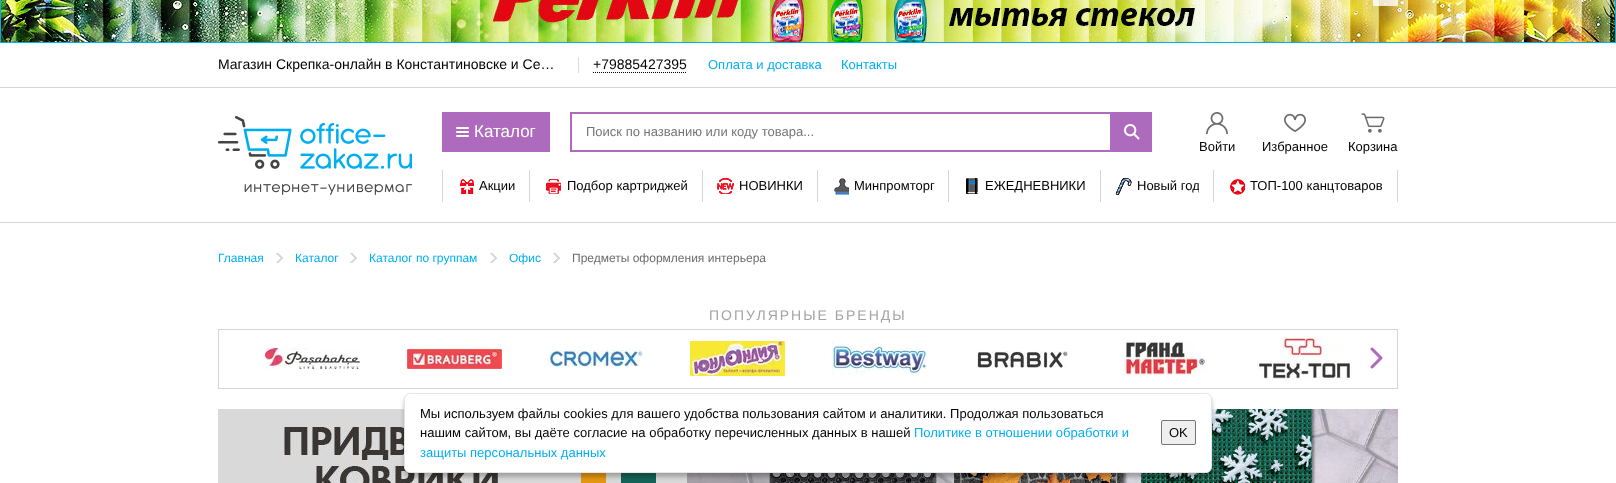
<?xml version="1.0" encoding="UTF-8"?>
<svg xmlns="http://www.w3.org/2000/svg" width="1616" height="483">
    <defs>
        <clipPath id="clip1"><rect x="1137" y="178" width="62" height="16"/></clipPath>
        <filter id="blur1" x="-50%" y="-200%" width="200%" height="500%"><feGaussianBlur stdDeviation="2"/></filter>
    </defs>
    <rect width="100%" height="100%" fill="#FFFFFF"/>
    <image x="1" y="0" width="1614" height="42" href="img_01.png"/>
    <rect x="0.5" y="-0.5" width="1615" height="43" fill="none" stroke="#00AFF0"/>
    <rect x="1373" y="0" width="25" height="6" fill="#FFFFFF" fill-opacity="0.8"/>
    <rect x="0" y="87" width="1616" height="1" fill="#D6D6D6"/>
    <text x="218" y="69" font-family="Liberation Sans" font-size="14" fill="#000000">Магазин Скрепка-онлайн в Константиновске и Се…</text>
    <rect x="578" y="57" width="1" height="16" fill="#DEDEDE"/>
    <text x="593" y="69" font-family="Liberation Sans" font-size="14" fill="#000000">+79885427395</text>
    <path d="M 593 72.5 H 687" fill="none" stroke="#000000" stroke-dasharray="1 1"/>
    <text x="708" y="69" font-family="Liberation Sans" font-size="13" fill="#00AFF0">Оплата и доставка</text>
    <text x="841" y="69" font-family="Liberation Sans" font-size="13" fill="#00AFF0">Контакты</text>
    <rect x="0" y="222" width="1616" height="1" fill="#D6D6D6"/>
    <image x="218" y="116" width="194" height="79" href="img_02.png"/>
    <rect x="442" y="112" width="108" height="40" fill="#AE6BBD"/>
    <rect x="456" y="131" width="13" height="2" rx="1" fill="#FFFFFF"/>
    <rect x="456" y="127" width="13" height="2" rx="1" fill="#FFFFFF"/>
    <rect x="456" y="135" width="13" height="2" rx="1" fill="#FFFFFF"/>
    <text x="474" y="137" font-family="Liberation Sans" font-size="17" fill="#FFFFFF">Каталог</text>
    <rect x="571" y="113" width="580" height="38" fill="none" stroke="#AE6BBD" stroke-width="2"/>
    <text x="586" y="136" font-family="Liberation Sans" font-size="13" fill="#757575">Поиск по названию или коду товара...</text>
    <rect x="1110" y="114" width="40" height="36" fill="#AE6BBD"/>
    <image x="1124" y="124" width="16" height="16" href="img_03.png"/>
    <image x="1206" y="112" width="22" height="22" href="img_04.png"/>
    <text x="1199" y="151" font-family="Liberation Sans" font-size="13" fill="#000000">Войти</text>
    <image x="1284" y="113" width="22" height="19" href="img_05.png"/>
    <text x="1262" y="151" font-family="Liberation Sans" font-size="13" fill="#000000">Избранное</text>
    <image x="1361" y="113" width="24" height="20" href="img_06.png"/>
    <text x="1348" y="151" font-family="Liberation Sans" font-size="13" fill="#000000">Корзина</text>
    <rect x="529" y="170" width="1" height="32" fill="#D6D6D6"/>
    <rect x="442" y="170" width="1" height="32" fill="#D6D6D6"/>
    <image x="460" y="179" width="14" height="15" href="img_07.png"/>
    <text x="479" y="190" font-family="Liberation Sans" font-size="13" fill="#000000">Акции</text>
    <rect x="702" y="170" width="1" height="32" fill="#D6D6D6"/>
    <image x="546" y="179" width="15" height="15" href="img_08.png"/>
    <text x="567" y="190" font-family="Liberation Sans" font-size="13" fill="#000000">Подбор картриджей</text>
    <rect x="817" y="170" width="1" height="32" fill="#D6D6D6"/>
    <image x="717" y="178" width="17" height="16" href="img_09.png"/>
    <text x="739" y="190" font-family="Liberation Sans" font-size="13" fill="#000000">НОВИНКИ</text>
    <rect x="948" y="170" width="1" height="32" fill="#D6D6D6"/>
    <image x="834" y="178" width="15" height="17" href="img_10.png"/>
    <text x="854" y="190" font-family="Liberation Sans" font-size="13" fill="#000000">Минпромторг</text>
    <rect x="1100" y="170" width="1" height="32" fill="#D6D6D6"/>
    <image x="966" y="178" width="12" height="16" href="img_11.png"/>
    <text x="985" y="190" font-family="Liberation Sans" font-size="13" fill="#000000">ЕЖЕДНЕВНИКИ</text>
    <rect x="1213" y="170" width="1" height="32" fill="#D6D6D6"/>
    <image x="1115" y="178" width="17" height="17" href="img_12.png"/>
    <g clip-path="url(#clip1)">
        <text x="1137" y="190" font-family="Liberation Sans" font-size="13" fill="#000000">Новый год</text>
    </g>
    <rect x="1397" y="170" width="1" height="32" fill="#D6D6D6"/>
    <image x="1230" y="179" width="15" height="16" href="img_13.png"/>
    <text x="1250" y="190" font-family="Liberation Sans" font-size="13" fill="#000000">ТОП-100 канцтоваров</text>
    <text x="218" y="262" font-family="Liberation Sans" font-size="12" fill="#00AFF0">Главная</text>
    <image x="276" y="253" width="7" height="10" href="img_14.png"/>
    <text x="295" y="262" font-family="Liberation Sans" font-size="12" fill="#00AFF0">Каталог</text>
    <image x="350" y="253" width="7" height="10" href="img_14.png"/>
    <text x="369" y="262" font-family="Liberation Sans" font-size="12" fill="#00AFF0">Каталог по группам</text>
    <image x="490" y="253" width="7" height="10" href="img_14.png"/>
    <text x="509" y="262" font-family="Liberation Sans" font-size="12" fill="#00AFF0">Офис</text>
    <image x="553" y="253" width="7" height="10" href="img_14.png"/>
    <text x="572" y="262" font-family="Liberation Sans" font-size="12" fill="#6C6C6C">Предметы оформления интерьера</text>
    <text x="709" y="320" font-family="Liberation Sans" font-size="14" letter-spacing="2" fill="#A4A4A4">ПОПУЛЯРНЫЕ БРЕНДЫ</text>
    <rect x="218.5" y="329.5" width="1179" height="59" fill="none" stroke="#D6D6D6"/>
    <image x="265" y="348" width="95" height="21" href="img_15.png"/>
    <image x="407" y="349" width="95" height="20" href="img_16.png"/>
    <image x="548" y="350" width="95" height="17" href="img_17.png"/>
    <image x="690" y="341" width="95" height="35" href="img_18.png"/>
    <image x="832" y="343" width="95" height="32" href="img_19.png"/>
    <image x="977" y="351" width="92" height="17" href="img_20.png"/>
    <image x="1123" y="340" width="84" height="37" href="img_21.png"/>
    <image x="1257" y="337" width="95" height="43" href="img_22.png"/>
    <image x="1370" y="347" width="13" height="22" href="img_23.png"/>
    <image x="218" y="409" width="1180" height="74" href="img_24.png"/>
    <rect x="404" y="397" width="808" height="80" rx="6" fill="#000000" fill-opacity="0.25" filter="url(#blur1)"/>
    <rect x="404.5" y="393.5" width="807" height="79" rx="5.5" fill="#FFFFFF" stroke="#E5E5E5"/>
    <text font-family="Liberation Sans" font-size="13" fill="#000000">
        <tspan x="420" y="418">Мы используем файлы cookies для вашего удобства пользования сайтом и аналитики. Продолжая пользоваться</tspan>
        <tspan x="420" y="437">нашим сайтом, вы даёте согласие на обработку перечисленных данных в нашей</tspan>
    </text>
    <text x="914" y="437" font-family="Liberation Sans" font-size="13" fill="#00AFF0">Политике в отношении обработки и</text>
    <text x="420" y="457" font-family="Liberation Sans" font-size="13" fill="#00AFF0">защиты персональных данных</text>
    <rect x="1161.5" y="420.5" width="34" height="24" rx="1.5" fill="#EFEFEF" stroke="#767676"/>
    <text x="1169" y="437" font-family="Liberation Sans" font-size="13" fill="#000000">OK</text>
</svg>
